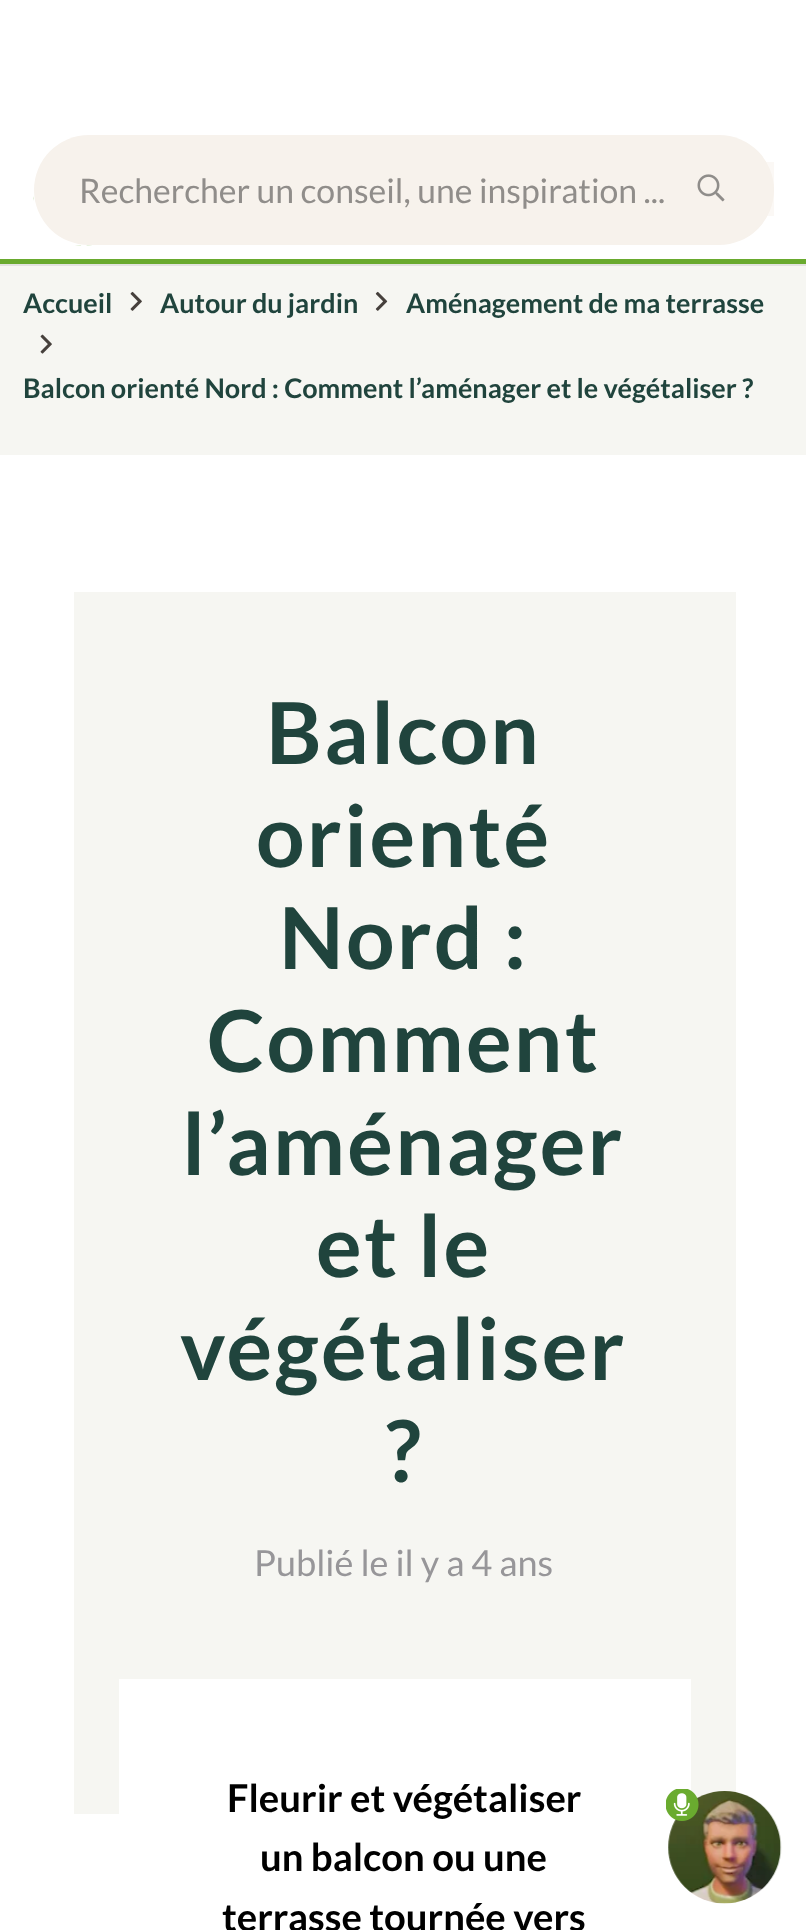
<?xml version="1.0" encoding="UTF-8"?>
<svg xmlns="http://www.w3.org/2000/svg" width="806" height="1930">
    <rect width="100%" height="100%" fill="#FFFFFF"/>
    <path d="M 0 263 V 266 H 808 V 137 V 263 Z" fill="#E2E2DF"/>
    <rect x="0" y="259" width="806" height="5" fill="#69AA2E"/>
    <image x="33" y="196" width="59" height="50" href="img_01.png"/>
    <rect x="34" y="196" width="58" height="49" fill="#FFFFFF"/>
    <rect x="34" y="135" width="740" height="110" rx="55" fill="#F7F2EC"/>
    <text x="79" y="203" font-family="Lato" font-size="33.75" fill="#908D8A">Rechercher un conseil, une inspiration ...</text>
    <rect x="766" y="162" width="8" height="54" fill="#F7F2EC" fill-opacity="0.5"/>
    <image x="697" y="174" width="28" height="28" href="img_02.png"/>
    <rect x="0" y="266" width="806" height="189" fill="#F6F6F2"/>
    <text x="23" y="313" font-family="Lato" font-size="27" font-weight="700" fill="#20443D">Accueil</text>
    <image x="130" y="291" width="12" height="20" href="img_03.png"/>
    <text x="160" y="313" font-family="Lato" font-size="27" font-weight="700" fill="#20443D">Autour du jardin</text>
    <image x="375" y="291" width="13" height="20" href="img_04.png"/>
    <text x="406" y="313" font-family="Lato" font-size="27" font-weight="700" fill="#20443D">Aménagement de ma terrasse</text>
    <image x="40" y="334" width="12" height="20" href="img_05.png"/>
    <text x="23" y="398" font-family="Lato" font-size="27" font-weight="700" fill="#20443D">Balcon orienté Nord : Comment l’aménager et le végétaliser ?</text>
    <rect x="74" y="592" width="662" height="1222" fill="#F6F6F2"/>
    <text x="266" y="764" font-family="Lato" font-size="85.5" font-weight="700" letter-spacing="2.25" fill="#20443D">Balcon</text>
    <text x="256" y="867" font-family="Lato" font-size="85.5" font-weight="700" letter-spacing="2.25" fill="#20443D">orienté</text>
    <text x="279" y="969" font-family="Lato" font-size="85.5" font-weight="700" letter-spacing="2.25" fill="#20443D">Nord :</text>
    <text x="207" y="1072" font-family="Lato" font-size="85.5" font-weight="700" letter-spacing="2.25" fill="#20443D">Comment</text>
    <text x="182" y="1175" font-family="Lato" font-size="85.5" font-weight="700" letter-spacing="2.25" fill="#20443D">l’aménager</text>
    <text x="316" y="1277" font-family="Lato" font-size="85.5" font-weight="700" letter-spacing="2.25" fill="#20443D">et le</text>
    <text x="180" y="1380" font-family="Lato" font-size="85.5" font-weight="700" letter-spacing="2.25" fill="#20443D">végétaliser</text>
    <text x="385" y="1482" font-family="Lato" font-size="85.5" font-weight="700" letter-spacing="2.25" fill="#20443D">?</text>
    <text x="254" y="1576" font-family="Lato" font-size="36" fill="#979699">Publié le il y a 4 ans</text>
    <rect x="119" y="1679" width="572" height="135" fill="#FFFFFF"/>
    <text x="227" y="1812" font-family="Lato" font-size="38.25" font-weight="700" fill="#000000">Fleurir et végétaliser</text>
    <text x="260" y="1871" font-family="Lato" font-size="38.25" font-weight="700" fill="#000000">un balcon ou une</text>
    <text x="222" y="1931" font-family="Lato" font-size="38.25" font-weight="700" fill="#000000">terrasse tournée vers</text>
    <image x="668" y="1791" width="114" height="113" href="img_07.png"/>
    <image x="666" y="1789" width="33" height="32" href="img_06.png"/>
</svg>
